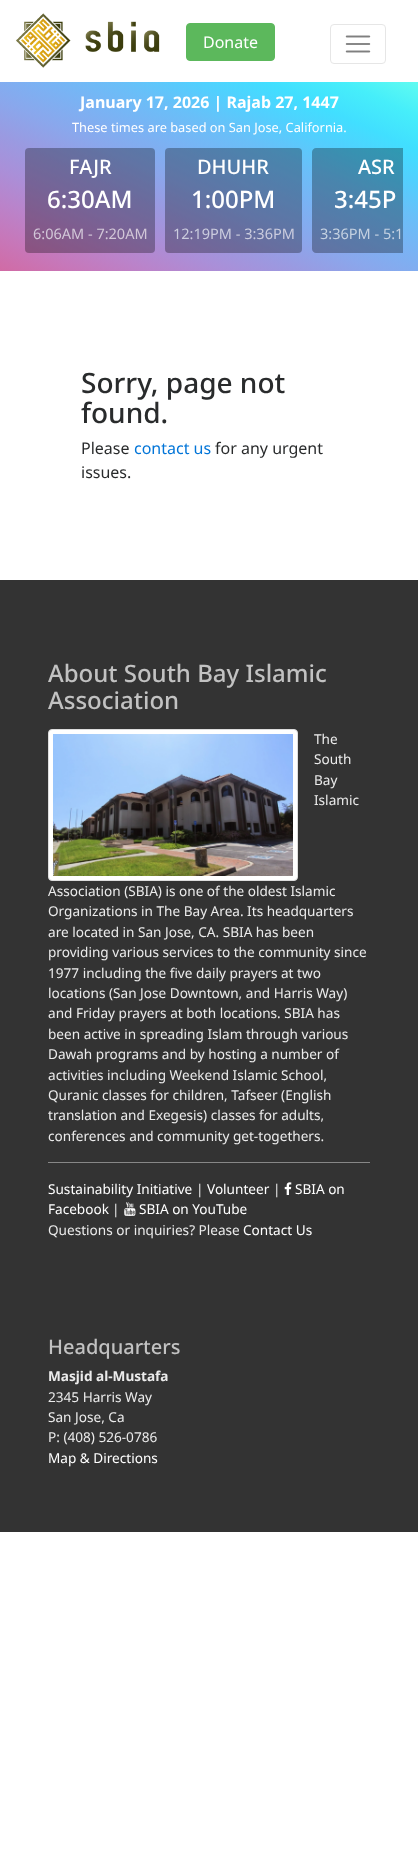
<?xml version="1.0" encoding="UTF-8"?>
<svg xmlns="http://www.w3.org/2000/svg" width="418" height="1852">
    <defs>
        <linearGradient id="g1" gradientUnits="userSpaceOnUse" x1="138" y1="333" x2="280" y2="20"><stop offset="0" stop-color="#D16BA5"/><stop offset="0.09" stop-color="#C777B9"/><stop offset="0.18" stop-color="#BA83CA"/><stop offset="0.27" stop-color="#AA8FD8"/><stop offset="0.36" stop-color="#9A9AE1"/><stop offset="0.45" stop-color="#8AA7EC"/><stop offset="0.55" stop-color="#79B3F4"/><stop offset="0.64" stop-color="#69BFF8"/><stop offset="0.73" stop-color="#52CFFE"/><stop offset="0.82" stop-color="#41DFFF"/><stop offset="0.91" stop-color="#46EEFA"/><stop offset="1" stop-color="#5FFBF1"/></linearGradient>
    </defs>
    <rect width="100%" height="100%" fill="#FFFFFF"/>
    <image x="16" y="13" width="144" height="55" href="img_01.png"/>
    <rect x="186.5" y="23.5" width="88" height="37" rx="3.5" fill="#5CB85C" stroke="#5CB85C"/>
    <text x="203" y="48" font-family="Noto Sans" font-size="16" fill="#FFFFFF">Donate</text>
    <rect x="330.5" y="24.5" width="55" height="39" rx="3.5" fill="none" stroke="#E6E6E6"/>
    <image x="345" y="35" width="26" height="18" href="img_02.png"/>
    <rect x="0" y="82" width="418" height="189" fill="url(#g1)"/>
    <text x="80" y="108" font-family="Noto Sans" font-size="16" font-weight="700" fill="#FFFFFF">January 17, 2026 | Rajab 27, 1447</text>
    <text x="72" y="132" font-family="Noto Sans" font-size="12.8" fill="#FFFFFF">These times are based on San Jose, California.</text>
    <rect x="25" y="148" width="130" height="105" rx="4" fill="#000000" fill-opacity="0.3"/>
    <text x="69" y="174" font-family="Noto Sans" font-size="20" font-weight="500" fill="#FFFFFF">FAJR</text>
    <text x="47" y="208" font-family="Noto Sans" font-size="24" font-weight="500" fill="#FFFFFF">6:30AM</text>
    <text x="33" y="239" font-family="Noto Sans" font-size="14.5" fill="#D2C7D8">6:06AM - 7:20AM</text>
    <rect x="165" y="148" width="137" height="105" rx="4" fill="#000000" fill-opacity="0.3"/>
    <text x="197" y="174" font-family="Noto Sans" font-size="20" font-weight="500" fill="#FFFFFF">DHUHR</text>
    <text x="191" y="208" font-family="Noto Sans" font-size="24" font-weight="500" fill="#FFFFFF">1:00PM</text>
    <text x="173" y="239" font-family="Noto Sans" font-size="14.5" fill="#CBCCDE">12:19PM - 3:36PM</text>
    <path d="M 316 148 H 403 V 253 H 316 C 314 253 312 251 312 249 V 152 C 312 150 314 148 316 148 Z" fill="#000000" fill-opacity="0.3"/>
    <text x="358" y="174" font-family="Noto Sans" font-size="20" font-weight="500" fill="#FFFFFF">ASR</text>
    <text x="334" y="208" font-family="Noto Sans" font-size="24" font-weight="500" fill="#FFFFFF">3:45P</text>
    <text x="320" y="239" font-family="Noto Sans" font-size="14.5" fill="#C4D1E1">3:36PM - 5:1</text>
    <text font-family="Noto Sans" font-size="28" font-weight="500" fill="#292B2C">
        <tspan x="81" y="393">Sorry, page not</tspan>
        <tspan x="81" y="423">found.</tspan>
    </text>
    <text x="81" y="454" font-family="Noto Sans" font-size="16" fill="#292B2C">Please</text>
    <text x="134" y="454" font-family="Noto Sans" font-size="16" fill="#0275D8">contact us</text>
    <text x="215" y="454" font-family="Noto Sans" font-size="16" fill="#292B2C">for any urgent</text>
    <text x="81" y="478" font-family="Noto Sans" font-size="16" fill="#292B2C">issues.</text>
    <rect x="0" y="580" width="418" height="952" fill="#333333"/>
    <text font-family="Noto Sans" font-size="24" font-weight="500" fill="#C2C2C2">
        <tspan x="48" y="682">About South Bay Islamic</tspan>
        <tspan x="48" y="709">Association</tspan>
    </text>
    <rect x="48.5" y="729.5" width="249" height="151" rx="3.5" fill="#FFFFFF" stroke="#DDDDDD"/>
    <image x="53" y="734" width="240" height="142" href="img_03.png"/>
    <text font-family="Noto Sans" font-size="13.6" fill="#EBEBEB">
        <tspan x="314" y="744">The</tspan>
        <tspan x="314" y="764">South</tspan>
        <tspan x="314" y="785">Bay</tspan>
        <tspan x="314" y="805">Islamic</tspan>
    </text>
    <text font-family="Noto Sans" font-size="13.6" fill="#EBEBEB">
        <tspan x="48" y="896">Association (SBIA) is one of the oldest Islamic</tspan>
        <tspan x="48" y="916">Organizations in The Bay Area. Its headquarters</tspan>
        <tspan x="48" y="937">are located in San Jose, CA. SBIA has been</tspan>
        <tspan x="48" y="957">providing various services to the community since</tspan>
        <tspan x="48" y="978">1977 including the five daily prayers at two</tspan>
        <tspan x="48" y="998">locations (San Jose Downtown, and Harris Way)</tspan>
        <tspan x="48" y="1018">and Friday prayers at both locations. SBIA has</tspan>
        <tspan x="48" y="1039">been active in spreading Islam through various</tspan>
        <tspan x="48" y="1059">Dawah programs and by hosting a number of</tspan>
        <tspan x="48" y="1080">activities including Weekend Islamic School,</tspan>
        <tspan x="48" y="1100">Quranic classes for children, Tafseer (English</tspan>
        <tspan x="48" y="1120">translation and Exegesis) classes for adults,</tspan>
        <tspan x="48" y="1141">conferences and community get-togethers.</tspan>
    </text>
    <rect x="48" y="1162" width="322" height="1" fill="#878787"/>
    <text x="48" y="1194" font-family="Noto Sans" font-size="13.6" fill="#FFFFFF">Sustainability Initiative</text>
    <text x="196" y="1194" font-family="Noto Sans" font-size="13.6" fill="#EBEBEB">|</text>
    <text x="207" y="1194" font-family="Noto Sans" font-size="13.6" fill="#FFFFFF">Volunteer</text>
    <text x="273" y="1194" font-family="Noto Sans" font-size="13.6" fill="#EBEBEB">|</text>
    <image x="284" y="1182" width="8" height="13" href="img_04.png"/>
    <text x="295" y="1194" font-family="Noto Sans" font-size="13.6" fill="#FFFFFF">SBIA on</text>
    <text x="48" y="1214" font-family="Noto Sans" font-size="13.6" fill="#FFFFFF">Facebook</text>
    <text x="112" y="1214" font-family="Noto Sans" font-size="13.6" fill="#EBEBEB">|</text>
    <image x="124" y="1202" width="12" height="14" href="img_05.png"/>
    <text x="139" y="1214" font-family="Noto Sans" font-size="13.6" fill="#FFFFFF">SBIA on YouTube</text>
    <text x="48" y="1235" font-family="Noto Sans" font-size="13.6" fill="#EBEBEB">Questions or inquiries? Please</text>
    <text x="243" y="1235" font-family="Noto Sans" font-size="13.6" fill="#FFFFFF">Contact Us</text>
    <text x="48" y="1354" font-family="Noto Sans" font-size="20" font-weight="500" fill="#C2C2C2">Headquarters</text>
    <text x="48" y="1381" font-family="Noto Sans" font-size="13.6" font-weight="700" fill="#EBEBEB">Masjid al-Mustafa</text>
    <text font-family="Noto Sans" font-size="13.6" fill="#EBEBEB">
        <tspan x="48" y="1402">2345 Harris Way</tspan>
        <tspan x="48" y="1422">San Jose, Ca</tspan>
        <tspan x="48" y="1442">P: (408) 526-0786</tspan>
    </text>
    <text x="48" y="1463" font-family="Noto Sans" font-size="13.6" fill="#FFFFFF">Map &amp; Directions</text>
</svg>
